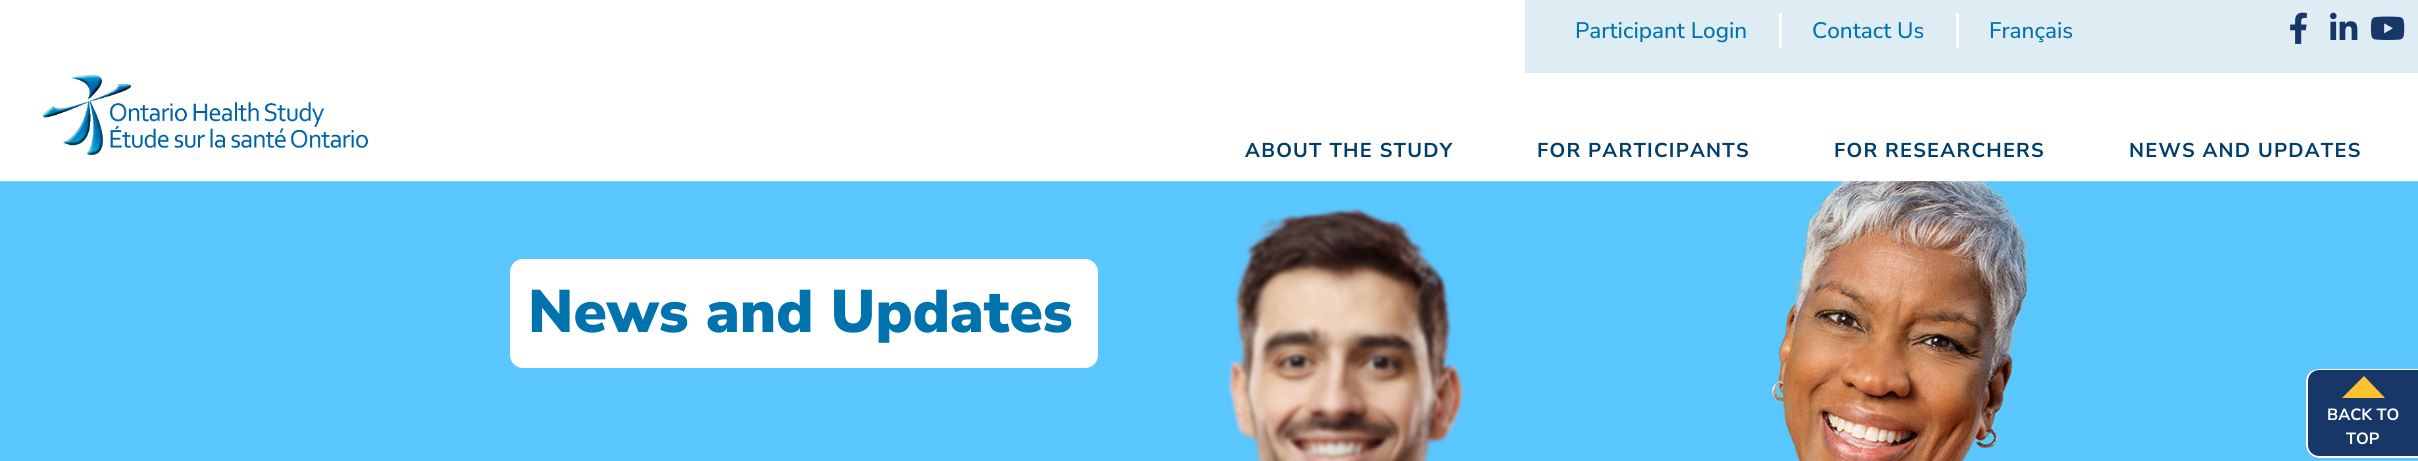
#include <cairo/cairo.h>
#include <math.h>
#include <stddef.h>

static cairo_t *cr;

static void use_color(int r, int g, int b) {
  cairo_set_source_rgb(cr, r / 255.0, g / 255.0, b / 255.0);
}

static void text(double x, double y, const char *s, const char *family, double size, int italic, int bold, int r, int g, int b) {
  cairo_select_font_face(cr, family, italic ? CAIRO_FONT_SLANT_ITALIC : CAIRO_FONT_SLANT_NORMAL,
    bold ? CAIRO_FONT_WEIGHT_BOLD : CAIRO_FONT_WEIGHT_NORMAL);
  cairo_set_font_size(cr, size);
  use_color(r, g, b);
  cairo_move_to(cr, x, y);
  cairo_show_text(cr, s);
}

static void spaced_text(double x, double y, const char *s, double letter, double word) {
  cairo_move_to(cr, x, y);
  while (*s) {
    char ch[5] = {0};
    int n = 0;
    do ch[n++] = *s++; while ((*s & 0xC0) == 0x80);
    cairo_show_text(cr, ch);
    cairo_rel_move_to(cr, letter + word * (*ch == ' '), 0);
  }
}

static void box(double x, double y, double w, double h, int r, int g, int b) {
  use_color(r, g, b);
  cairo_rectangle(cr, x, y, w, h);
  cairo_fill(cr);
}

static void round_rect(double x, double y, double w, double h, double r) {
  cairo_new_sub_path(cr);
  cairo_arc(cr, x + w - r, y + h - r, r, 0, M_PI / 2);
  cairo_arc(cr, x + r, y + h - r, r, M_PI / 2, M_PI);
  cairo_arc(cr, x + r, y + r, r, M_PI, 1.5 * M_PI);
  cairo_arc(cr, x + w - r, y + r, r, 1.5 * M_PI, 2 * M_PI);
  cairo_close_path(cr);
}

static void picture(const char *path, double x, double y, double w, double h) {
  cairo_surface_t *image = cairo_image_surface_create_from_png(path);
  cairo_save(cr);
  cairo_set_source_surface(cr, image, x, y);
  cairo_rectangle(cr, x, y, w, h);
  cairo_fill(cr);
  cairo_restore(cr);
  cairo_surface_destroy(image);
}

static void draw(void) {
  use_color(255, 255, 255);
  cairo_paint(cr);
  picture("img_01.png", 42, 75, 327, 80);
  box(1525, 0, 893, 73, 222, 236, 244);
  box(1779, 13, 3, 35, 255, 255, 255);
  box(1956, 13, 3, 35, 255, 255, 255);
  picture("img_02.png", 2290, 12, 17, 32);
  picture("img_03.png", 2330, 12, 28, 28);
  picture("img_04.png", 2370, 16, 35, 24);
  picture("img_05.png", 0, 181, 2418, 280);
  round_rect(510, 259, 588, 109, 13);
  cairo_fill(cr);
  use_color(24, 55, 105);
  cairo_new_path(cr);
  cairo_move_to(cr, 2319, 369);
  cairo_line_to(cr, 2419, 369);
  cairo_line_to(cr, 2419, 458);
  cairo_line_to(cr, 2319, 458);
  cairo_curve_to(cr, 2312, 458, 2306, 452, 2306, 445);
  cairo_line_to(cr, 2306, 382);
  cairo_curve_to(cr, 2306, 375, 2312, 369, 2319, 369);
  cairo_close_path(cr);
  cairo_fill(cr);
  use_color(255, 255, 255);
  cairo_set_fill_rule(cr, CAIRO_FILL_RULE_EVEN_ODD);
  cairo_new_path(cr);
  cairo_move_to(cr, 2319, 369);
  cairo_line_to(cr, 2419, 369);
  cairo_line_to(cr, 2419, 458);
  cairo_line_to(cr, 2319, 458);
  cairo_curve_to(cr, 2312, 458, 2306, 452, 2306, 445);
  cairo_line_to(cr, 2306, 381);
  cairo_curve_to(cr, 2306, 374, 2312, 369, 2319, 369);
  cairo_close_path(cr);
  cairo_move_to(cr, 2319, 370);
  cairo_line_to(cr, 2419, 370);
  cairo_line_to(cr, 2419, 456);
  cairo_line_to(cr, 2319, 456);
  cairo_curve_to(cr, 2313, 456, 2308, 451, 2308, 445);
  cairo_line_to(cr, 2308, 381);
  cairo_curve_to(cr, 2308, 375, 2313, 370, 2319, 370);
  cairo_close_path(cr);
  cairo_fill(cr);
  use_color(251, 196, 47);
  cairo_set_fill_rule(cr, CAIRO_FILL_RULE_WINDING);
  cairo_new_path(cr);
  cairo_move_to(cr, 2385, 398);
  cairo_line_to(cr, 2342, 398);
  cairo_line_to(cr, 2364, 376);
  cairo_close_path(cr);
  cairo_fill(cr);
  text(1575, 38, "Participant Login", "Nunito Sans Medium", 22.5, 0, 0, 0, 115, 174);
  text(1812, 38, "Contact Us", "Nunito Sans Medium", 22.5, 0, 0, 0, 115, 174);
  text(1989, 38, "Français", "Nunito Sans Medium", 22.5, 0, 0, 0, 115, 174);
  cairo_select_font_face(cr, "Nunito Sans", CAIRO_FONT_SLANT_NORMAL, CAIRO_FONT_WEIGHT_BOLD);
  cairo_set_font_size(cr, 20);
  use_color(0, 62, 107);
  spaced_text(1245, 157, "ABOUT THE STUDY", 1.25, 0);
  spaced_text(1537, 157, "FOR PARTICIPANTS", 1.25, 0);
  spaced_text(1834, 157, "FOR RESEARCHERS", 1.25, 0);
  spaced_text(2129, 157, "NEWS AND UPDATES", 1.25, 0);
  text(528, 332, "News and Updates", "Nunito Sans Black", 60, 0, 0, 0, 115, 174);
  text(2327, 420, "BACK TO", "Nunito Sans", 16.25, 0, 1, 255, 255, 255);
  text(2346, 444, "TOP", "Nunito Sans", 16.25, 0, 1, 255, 255, 255);
}

int main(void) {
  cairo_surface_t *surface = cairo_image_surface_create(CAIRO_FORMAT_RGB24, 2418, 461);
  cr = cairo_create(surface);
  cairo_font_options_t *options = cairo_font_options_create();
  cairo_font_options_set_hint_metrics(options, CAIRO_HINT_METRICS_OFF);
  cairo_font_options_set_hint_style(options, CAIRO_HINT_STYLE_NONE);
  cairo_set_font_options(cr, options);
  cairo_set_miter_limit(cr, 4);
  draw();
  cairo_surface_write_to_png(surface, "out.png");
  cairo_font_options_destroy(options);
  cairo_destroy(cr);
  cairo_surface_destroy(surface);
  return 0;
}
